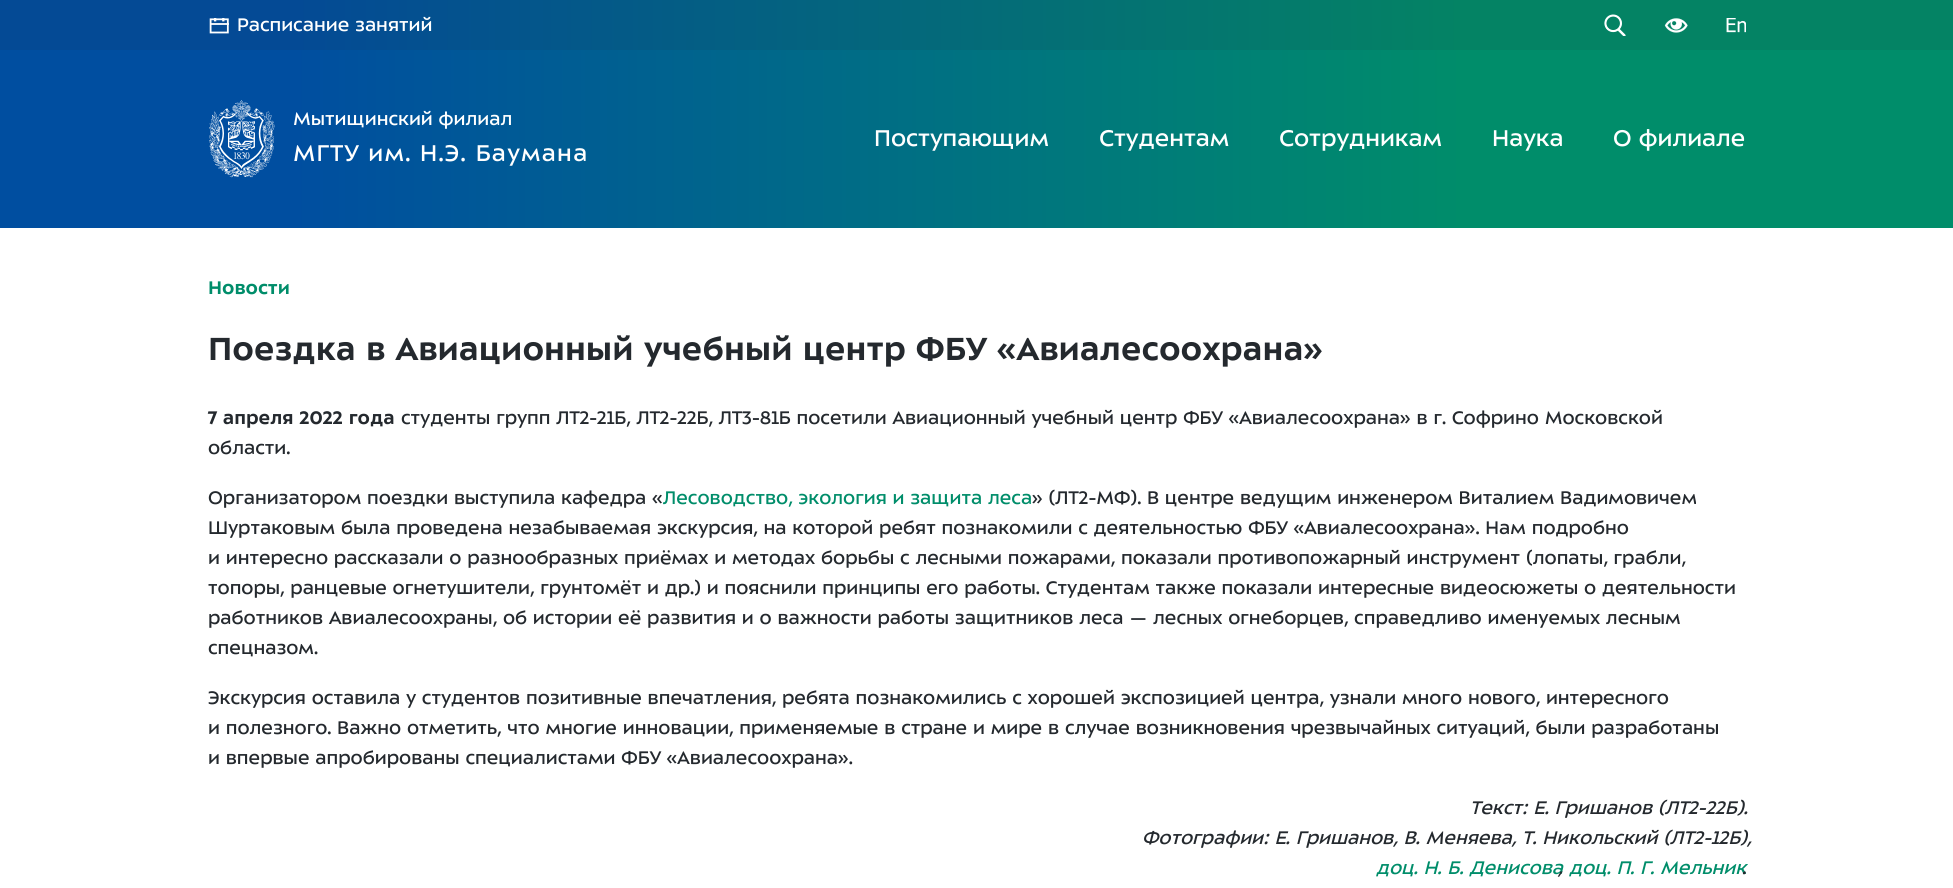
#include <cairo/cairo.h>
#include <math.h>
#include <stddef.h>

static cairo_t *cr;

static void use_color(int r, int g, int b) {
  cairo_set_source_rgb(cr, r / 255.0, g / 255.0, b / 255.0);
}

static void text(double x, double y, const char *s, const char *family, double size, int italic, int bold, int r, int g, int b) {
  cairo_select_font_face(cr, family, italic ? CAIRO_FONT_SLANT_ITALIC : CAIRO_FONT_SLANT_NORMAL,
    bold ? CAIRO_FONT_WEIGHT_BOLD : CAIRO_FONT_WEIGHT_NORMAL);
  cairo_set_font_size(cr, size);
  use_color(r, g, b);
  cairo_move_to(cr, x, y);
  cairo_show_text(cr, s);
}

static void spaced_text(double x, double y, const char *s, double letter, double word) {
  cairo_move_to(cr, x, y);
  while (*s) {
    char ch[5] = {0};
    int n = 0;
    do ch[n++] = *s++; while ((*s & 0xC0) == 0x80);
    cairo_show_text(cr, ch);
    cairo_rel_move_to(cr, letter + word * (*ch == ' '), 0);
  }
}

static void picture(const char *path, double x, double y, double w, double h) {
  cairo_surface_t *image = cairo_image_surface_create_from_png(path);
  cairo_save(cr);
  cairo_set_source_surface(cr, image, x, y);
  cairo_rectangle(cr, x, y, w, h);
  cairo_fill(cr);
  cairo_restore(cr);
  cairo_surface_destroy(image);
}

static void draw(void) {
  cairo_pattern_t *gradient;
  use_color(255, 255, 255);
  cairo_paint(cr);
  gradient = cairo_pattern_create_linear(0, 114, 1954, 114);
  cairo_pattern_add_color_stop_rgba(gradient, 0.15, 0, 0.306, 0.627, 1);
  cairo_pattern_add_color_stop_rgba(gradient, 0.75, 0, 0.553, 0.416, 1);
  cairo_set_source(cr, gradient);
  cairo_pattern_destroy(gradient);
  cairo_rectangle(cr, 0, 50, 1953, 178);
  cairo_fill(cr);
  gradient = cairo_pattern_create_linear(0, 114, 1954, 114);
  cairo_pattern_add_color_stop_rgba(gradient, 0.15, 0.016, 0.29, 0.584, 1);
  cairo_pattern_add_color_stop_rgba(gradient, 0.75, 0.016, 0.514, 0.392, 1);
  cairo_set_source(cr, gradient);
  cairo_pattern_destroy(gradient);
  cairo_rectangle(cr, 0, 0, 1953, 50);
  cairo_fill(cr);
  picture("img_01.png", 209, 18, 20, 16);
  picture("img_02.png", 1604, 14, 22, 22);
  picture("img_03.png", 1664, 18, 24, 15);
  picture("img_04.png", 1726, 18, 20, 15);
  picture("img_05.png", 209, 100, 66, 78);
  text(237, 31, "Расписание занятий", "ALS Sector", 20, 0, 0, 255, 255, 255);
  text(293, 125, "Мытищинский филиал", "ALS Sector", 20, 0, 0, 255, 255, 255);
  cairo_set_font_size(cr, 25);
  spaced_text(293, 161, "МГТУ им. Н.Э. Баумана", 1.3, 0);
  text(874, 146, "Поступающим", "ALS Sector", 25, 0, 0, 255, 255, 255);
  text(1099, 146, "Студентам", "ALS Sector", 25, 0, 0, 255, 255, 255);
  text(1279, 146, "Сотрудникам", "ALS Sector", 25, 0, 0, 255, 255, 255);
  text(1492, 146, "Наука", "ALS Sector", 25, 0, 0, 255, 255, 255);
  text(1613, 146, "О филиале", "ALS Sector", 25, 0, 0, 255, 255, 255);
  text(208, 294, "Новости", "ALS Sector", 20, 0, 1, 0, 141, 106);
  text(208, 360, "Поездка в Авиационный учебный центр ФБУ «Авиалесоохрана»", "ALS Sector", 35, 0, 1, 36, 41, 46);
  text(208, 424, "7 апреля 2022 года", "ALS Sector", 20, 0, 1, 36, 41, 46);
  text(401, 424, "студенты групп ЛТ2-21Б, ЛТ2-22Б, ЛТ3-81Б посетили Авиационный учебный центр ФБУ «Авиалесоохрана» в г. Софрино Московской", "ALS Sector", 20, 0, 0, 36, 41, 46);
  text(208, 454, "области.", "ALS Sector", 20, 0, 0, 36, 41, 46);
  text(208, 504, "Организатором поездки выступила кафедра «", "ALS Sector", 20, 0, 0, 36, 41, 46);
  text(663, 504, "Лесоводство, экология и защита леса", "ALS Sector", 20, 0, 0, 0, 141, 106);
  text(1032, 504, "» (ЛТ2-МФ). В центре ведущим инженером Виталием Вадимовичем", "ALS Sector", 20, 0, 0, 36, 41, 46);
  text(208, 534, "Шуртаковым была проведена незабываемая экскурсия, на которой ребят познакомили с деятельностью ФБУ «Авиалесоохрана». Нам подробно", "ALS Sector", 20, 0, 0, 36, 41, 46);
  text(208, 564, "и интересно рассказали о разнообразных приёмах и методах борьбы с лесными пожарами, показали противопожарный инструмент (лопаты, грабли,", "ALS Sector", 20, 0, 0, 36, 41, 46);
  text(208, 594, "топоры, ранцевые огнетушители, грунтомёт и др.) и пояснили принципы его работы. Студентам также показали интересные видеосюжеты о деятельности", "ALS Sector", 20, 0, 0, 36, 41, 46);
  text(208, 624, "работников Авиалесоохраны, об истории её развития и о важности работы защитников леса — лесных огнеборцев, справедливо именуемых лесным", "ALS Sector", 20, 0, 0, 36, 41, 46);
  text(208, 654, "спецназом.", "ALS Sector", 20, 0, 0, 36, 41, 46);
  text(208, 704, "Экскурсия оставила у студентов позитивные впечатления, ребята познакомились с хорошей экспозицией центра, узнали много нового, интересного", "ALS Sector", 20, 0, 0, 36, 41, 46);
  text(208, 734, "и полезного. Важно отметить, что многие инновации, применяемые в стране и мире в случае возникновения чрезвычайных ситуаций, были разработаны", "ALS Sector", 20, 0, 0, 36, 41, 46);
  text(208, 764, "и впервые апробированы специалистами ФБУ «Авиалесоохрана».", "ALS Sector", 20, 0, 0, 36, 41, 46);
  text(1470, 814, "Текст: Е. Гришанов (ЛТ2-22Б).", "ALS Sector", 20, 1, 0, 36, 41, 46);
  text(1142, 844, "Фотографии: Е. Гришанов, В. Меняева, Т. Никольский (ЛТ2-12Б),", "ALS Sector", 20, 1, 0, 36, 41, 46);
  text(1376, 874, "доц. Н. Б. Денисова", "ALS Sector", 20, 1, 0, 0, 141, 106);
  text(1558, 874, ",", "ALS Sector", 20, 1, 0, 36, 41, 46);
  text(1569, 874, "доц. П. Г. Мельник", "ALS Sector", 20, 1, 0, 0, 141, 106);
  text(1742, 874, ".", "ALS Sector", 20, 1, 0, 36, 41, 46);
}

int main(void) {
  cairo_surface_t *surface = cairo_image_surface_create(CAIRO_FORMAT_RGB24, 1953, 888);
  cr = cairo_create(surface);
  cairo_font_options_t *options = cairo_font_options_create();
  cairo_font_options_set_hint_metrics(options, CAIRO_HINT_METRICS_OFF);
  cairo_font_options_set_hint_style(options, CAIRO_HINT_STYLE_NONE);
  cairo_set_font_options(cr, options);
  cairo_set_miter_limit(cr, 4);
  draw();
  cairo_surface_write_to_png(surface, "out.png");
  cairo_font_options_destroy(options);
  cairo_destroy(cr);
  cairo_surface_destroy(surface);
  return 0;
}
